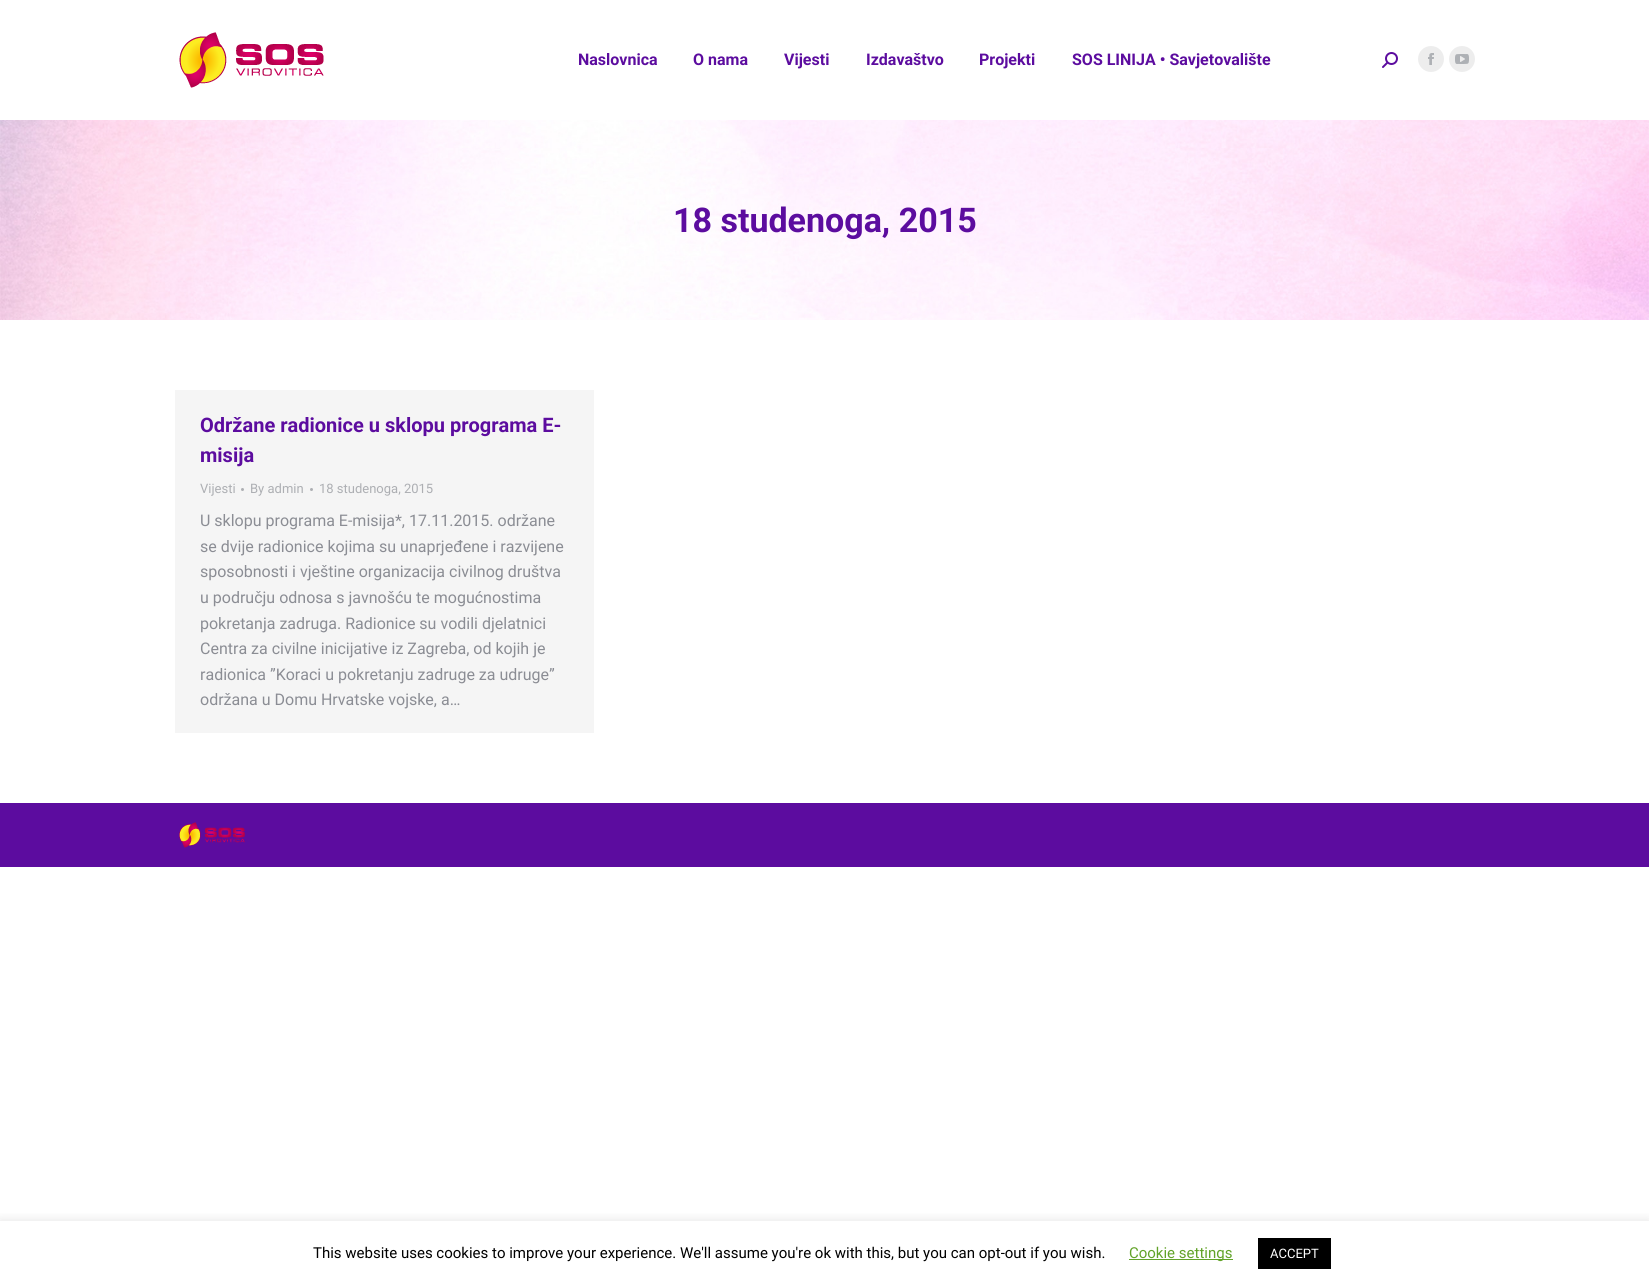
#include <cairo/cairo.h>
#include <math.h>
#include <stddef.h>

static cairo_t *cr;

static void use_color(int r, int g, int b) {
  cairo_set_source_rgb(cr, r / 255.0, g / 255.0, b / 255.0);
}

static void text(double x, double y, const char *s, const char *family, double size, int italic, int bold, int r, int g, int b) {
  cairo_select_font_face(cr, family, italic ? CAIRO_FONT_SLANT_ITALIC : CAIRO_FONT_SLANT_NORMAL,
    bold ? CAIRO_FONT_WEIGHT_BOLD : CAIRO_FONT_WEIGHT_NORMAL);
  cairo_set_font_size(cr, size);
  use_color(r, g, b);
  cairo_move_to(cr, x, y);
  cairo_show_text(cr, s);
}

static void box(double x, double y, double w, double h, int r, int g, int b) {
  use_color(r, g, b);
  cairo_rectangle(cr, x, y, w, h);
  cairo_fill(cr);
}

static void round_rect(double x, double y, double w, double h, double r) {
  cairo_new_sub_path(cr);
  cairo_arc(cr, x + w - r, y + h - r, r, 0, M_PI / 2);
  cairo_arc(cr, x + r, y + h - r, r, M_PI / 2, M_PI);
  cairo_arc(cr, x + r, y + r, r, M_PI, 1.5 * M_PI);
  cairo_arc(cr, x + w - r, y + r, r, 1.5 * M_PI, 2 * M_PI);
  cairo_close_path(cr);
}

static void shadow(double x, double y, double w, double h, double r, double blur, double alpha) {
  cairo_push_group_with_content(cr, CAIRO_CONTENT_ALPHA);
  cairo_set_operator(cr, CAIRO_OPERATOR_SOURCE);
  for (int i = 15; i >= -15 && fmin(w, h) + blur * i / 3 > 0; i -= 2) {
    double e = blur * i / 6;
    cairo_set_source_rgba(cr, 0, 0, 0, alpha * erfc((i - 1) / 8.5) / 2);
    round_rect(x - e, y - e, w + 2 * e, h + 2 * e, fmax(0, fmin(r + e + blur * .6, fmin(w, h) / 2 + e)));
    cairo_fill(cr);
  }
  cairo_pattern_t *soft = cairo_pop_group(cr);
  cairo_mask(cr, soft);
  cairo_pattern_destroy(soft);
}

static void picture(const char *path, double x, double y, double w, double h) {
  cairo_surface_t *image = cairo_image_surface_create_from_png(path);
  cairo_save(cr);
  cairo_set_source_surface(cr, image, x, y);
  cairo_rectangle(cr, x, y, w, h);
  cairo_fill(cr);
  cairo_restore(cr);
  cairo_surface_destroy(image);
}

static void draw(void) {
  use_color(255, 255, 255);
  cairo_paint(cr);
  picture("img_01.png", 179, 32, 145, 56);
  picture("img_02.png", 1382, 52, 16, 16);
  use_color(237, 237, 237);
  cairo_arc(cr, 1431, 59, 13, 0, 2 * M_PI);
  cairo_fill(cr);
  picture("img_03.png", 1428, 53, 6, 12);
  cairo_arc(cr, 1462, 59, 13, 0, 2 * M_PI);
  cairo_fill(cr);
  picture("img_04.png", 1455, 54, 14, 10);
  picture("img_05.png", 0, 120, 1649, 200);
  box(175, 390, 419, 343, 245, 245, 245);
  use_color(173, 175, 179);
  cairo_arc(cr, 242.5, 489.5, 1.5, 0, 2 * M_PI);
  cairo_fill(cr);
  cairo_arc(cr, 311.5, 489.5, 1.5, 0, 2 * M_PI);
  cairo_fill(cr);
  box(0, 803, 1649, 64, 92, 12, 159);
  picture("img_06.png", 179, 822, 66, 26);
  cairo_save(cr);
  cairo_rectangle(cr, 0, 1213, 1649, 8);
  cairo_clip(cr);
  use_color(172, 171, 171);
  shadow(0, 1220, 1649, 65, 0, 5, 0.3);
  cairo_restore(cr);
  box(1129, 1259, 104, 1, 98, 163, 41);
  box(1258, 1238, 73, 31, 0, 0, 0);
  text(578, 65, "Naslovnica", "Roboto", 16, 0, 1, 92, 12, 159);
  text(693, 65, "O nama", "Roboto", 16, 0, 1, 92, 12, 159);
  text(784, 65, "Vijesti", "Roboto", 16, 0, 1, 92, 12, 159);
  text(866, 65, "Izdavaštvo", "Roboto", 16, 0, 1, 92, 12, 159);
  text(979, 65, "Projekti", "Roboto", 16, 0, 1, 92, 12, 159);
  text(1072, 65, "SOS LINIJA • Savjetovalište", "Roboto", 16, 0, 1, 92, 12, 159);
  text(673, 232, "18 studenoga, 2015", "Roboto", 34, 0, 1, 92, 12, 159);
  text(200, 432, "Održane radionice u sklopu programa E-", "Roboto", 20, 0, 1, 92, 12, 159);
  text(200, 462, "misija", "Roboto", 20, 0, 1, 92, 12, 159);
  text(200, 493, "Vijesti", "Roboto", 13, 0, 0, 173, 175, 179);
  text(250, 493, "By admin", "Roboto", 13, 0, 0, 173, 175, 179);
  text(319, 493, "18 studenoga, 2015", "Roboto", 13, 0, 0, 173, 175, 179);
  text(200, 526, "U sklopu programa E-misija*, 17.11.2015. održane", "Roboto", 16, 0, 0, 139, 141, 148);
  text(200, 552, "se dvije radionice kojima su unaprjeđene i razvijene", "Roboto", 16, 0, 0, 139, 141, 148);
  text(200, 577, "sposobnosti i vještine organizacija civilnog društva", "Roboto", 16, 0, 0, 139, 141, 148);
  text(200, 603, "u području odnosa s javnošću te mogućnostima", "Roboto", 16, 0, 0, 139, 141, 148);
  text(200, 629, "pokretanja zadruga. Radionice su vodili djelatnici", "Roboto", 16, 0, 0, 139, 141, 148);
  text(200, 654, "Centra za civilne inicijative iz Zagreba, od kojih je", "Roboto", 16, 0, 0, 139, 141, 148);
  text(200, 680, "radionica ”Koraci u pokretanju zadruge za udruge”", "Roboto", 16, 0, 0, 139, 141, 148);
  text(200, 705, "održana u Domu Hrvatske vojske, a…", "Roboto", 16, 0, 0, 139, 141, 148);
  text(313, 1258, "This website uses cookies to improve your experience. We'll assume you're ok with this, but you can opt-out if you wish.", "Roboto", 15, 0, 0, 0, 0, 0);
  text(1129, 1258, "Cookie settings", "Roboto", 15, 0, 0, 98, 163, 41);
  text(1270, 1258, "ACCEPT", "Roboto", 13, 0, 0, 255, 255, 255);
}

int main(void) {
  cairo_surface_t *surface = cairo_image_surface_create(CAIRO_FORMAT_RGB24, 1649, 1286);
  cr = cairo_create(surface);
  cairo_font_options_t *options = cairo_font_options_create();
  cairo_font_options_set_hint_metrics(options, CAIRO_HINT_METRICS_OFF);
  cairo_font_options_set_hint_style(options, CAIRO_HINT_STYLE_NONE);
  cairo_set_font_options(cr, options);
  cairo_set_miter_limit(cr, 4);
  draw();
  cairo_surface_write_to_png(surface, "out.png");
  cairo_font_options_destroy(options);
  cairo_destroy(cr);
  cairo_surface_destroy(surface);
  return 0;
}
